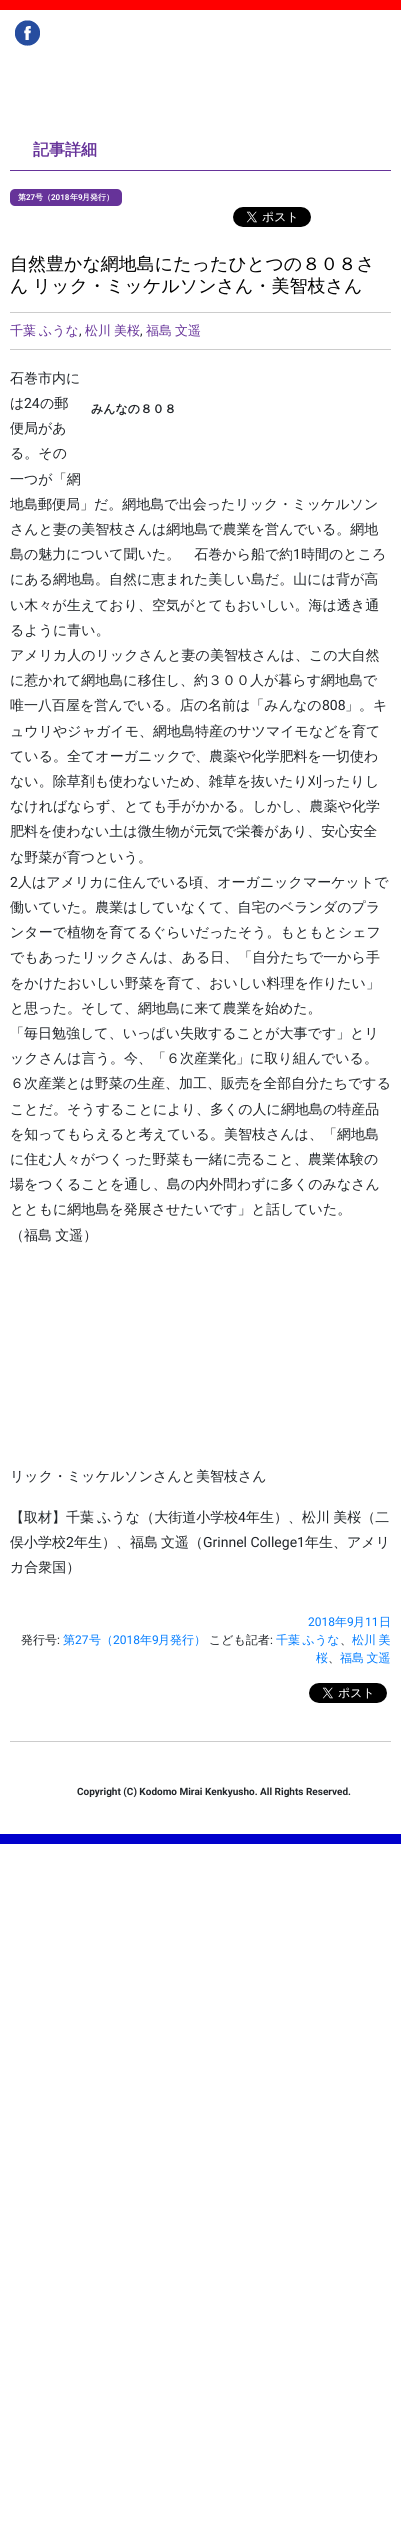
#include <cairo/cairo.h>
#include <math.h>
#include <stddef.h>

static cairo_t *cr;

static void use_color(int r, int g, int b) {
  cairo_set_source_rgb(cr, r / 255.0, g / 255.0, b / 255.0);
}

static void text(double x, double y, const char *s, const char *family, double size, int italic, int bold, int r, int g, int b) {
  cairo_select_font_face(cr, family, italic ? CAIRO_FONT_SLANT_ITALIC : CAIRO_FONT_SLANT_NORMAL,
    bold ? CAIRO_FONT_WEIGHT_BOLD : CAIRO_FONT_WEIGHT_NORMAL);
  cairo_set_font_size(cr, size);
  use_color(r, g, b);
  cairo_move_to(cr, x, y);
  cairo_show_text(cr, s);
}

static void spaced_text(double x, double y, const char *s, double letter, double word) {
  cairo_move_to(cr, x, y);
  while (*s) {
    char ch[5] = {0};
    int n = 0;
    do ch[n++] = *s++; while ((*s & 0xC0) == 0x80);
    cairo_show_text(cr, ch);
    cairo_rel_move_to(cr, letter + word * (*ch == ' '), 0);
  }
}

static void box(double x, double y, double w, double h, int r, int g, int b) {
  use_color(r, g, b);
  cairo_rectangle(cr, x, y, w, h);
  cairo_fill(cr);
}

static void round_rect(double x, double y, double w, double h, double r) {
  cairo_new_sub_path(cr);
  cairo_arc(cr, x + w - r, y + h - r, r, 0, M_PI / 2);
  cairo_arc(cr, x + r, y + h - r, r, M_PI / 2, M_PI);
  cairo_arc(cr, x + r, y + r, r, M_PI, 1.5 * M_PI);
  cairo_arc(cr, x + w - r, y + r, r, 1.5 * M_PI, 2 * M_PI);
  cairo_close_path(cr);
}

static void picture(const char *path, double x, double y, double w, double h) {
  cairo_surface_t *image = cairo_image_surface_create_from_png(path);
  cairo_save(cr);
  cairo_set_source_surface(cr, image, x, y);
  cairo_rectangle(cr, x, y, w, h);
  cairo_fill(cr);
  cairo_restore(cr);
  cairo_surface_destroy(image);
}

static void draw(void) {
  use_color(255, 255, 255);
  cairo_paint(cr);
  box(0, 0, 401, 10, 255, 0, 0);
  picture("img_01.png", 15, 20, 25, 26);
  box(10, 170, 381, 1, 102, 51, 153);
  round_rect(10, 189, 112, 17, 5);
  cairo_fill(cr);
  picture("img_02.png", 233, 207, 78, 20);
  box(10, 312, 381, 1, 204, 204, 204);
  box(10, 349, 381, 1, 204, 204, 204);
  picture("img_03.png", 309, 1683, 78, 20);
  box(10, 1741, 381, 1, 204, 204, 204);
  box(0, 1834, 401, 10, 0, 0, 204);
  text(33, 155, "記事詳細", "WenQuanYi Zen Hei", 16, 0, 1, 102, 51, 153);
  text(18, 200, "第", "WenQuanYi Zen Hei", 8, 0, 1, 255, 255, 255);
  text(26, 200, "27", "Roboto", 8, 0, 1, 255, 255, 255);
  text(35, 200, "号（", "WenQuanYi Zen Hei", 8, 0, 1, 255, 255, 255);
  text(51, 200, "2018", "Roboto", 8, 0, 1, 255, 255, 255);
  text(70, 200, "年", "WenQuanYi Zen Hei", 8, 0, 1, 255, 255, 255);
  text(78, 200, "9", "Roboto", 8, 0, 1, 255, 255, 255);
  text(82, 200, "月発行）", "WenQuanYi Zen Hei", 8, 0, 1, 255, 255, 255);
  text(10, 270, "自然豊かな網地島にたったひとつの８０８さ", "WenQuanYi Zen Hei Medium", 18, 0, 0, 0, 0, 0);
  spaced_text(10, 292, "ん リック・ミッケルソンさん・美智枝さん", 0, -1);
  cairo_set_font_size(cr, 13);
  use_color(102, 51, 153);
  spaced_text(10, 335, "千葉 ふうな", 0, -1);
  text(79, 335, ",", "Roboto", 13, 0, 0, 33, 37, 41);
  cairo_select_font_face(cr, "WenQuanYi Zen Hei Medium", CAIRO_FONT_SLANT_NORMAL, CAIRO_FONT_WEIGHT_NORMAL);
  use_color(102, 51, 153);
  spaced_text(85, 335, "松川 美桜", 0, -1);
  text(140, 335, ",", "Roboto", 13, 0, 0, 33, 37, 41);
  cairo_select_font_face(cr, "WenQuanYi Zen Hei Medium", CAIRO_FONT_SLANT_NORMAL, CAIRO_FONT_WEIGHT_NORMAL);
  use_color(102, 51, 153);
  spaced_text(146, 335, "福島 文遥", 0, -1);
  text(10, 383, "石巻市内に", "WenQuanYi Zen Hei Medium", 14, 0, 0, 33, 37, 41);
  text(10, 408, "は", "WenQuanYi Zen Hei Medium", 14, 0, 0, 33, 37, 41);
  text(24, 408, "24", "Roboto", 14, 0, 0, 33, 37, 41);
  text(40, 408, "の郵", "WenQuanYi Zen Hei Medium", 14, 0, 0, 33, 37, 41);
  text(10, 433, "便局があ", "WenQuanYi Zen Hei Medium", 14, 0, 0, 33, 37, 41);
  text(10, 458, "る。その", "WenQuanYi Zen Hei Medium", 14, 0, 0, 33, 37, 41);
  text(10, 484, "一つが「網", "WenQuanYi Zen Hei Medium", 14, 0, 0, 33, 37, 41);
  text(10, 509, "地島郵便局」だ。網地島で出会ったリック・ミッケルソン", "WenQuanYi Zen Hei Medium", 14, 0, 0, 33, 37, 41);
  text(10, 534, "さんと妻の美智枝さんは網地島で農業を営んでいる。網地", "WenQuanYi Zen Hei Medium", 14, 0, 0, 33, 37, 41);
  text(10, 559, "島の魅力について聞いた。　石巻から船で約", "WenQuanYi Zen Hei Medium", 14, 0, 0, 33, 37, 41);
  text(293, 559, "1", "Roboto", 14, 0, 0, 33, 37, 41);
  text(301, 559, "時間のところ", "WenQuanYi Zen Hei Medium", 14, 0, 0, 33, 37, 41);
  text(10, 584, "にある網地島。自然に恵まれた美しい島だ。山には背が高", "WenQuanYi Zen Hei Medium", 14, 0, 0, 33, 37, 41);
  text(10, 610, "い木々が生えており、空気がとてもおいしい。海は透き通", "WenQuanYi Zen Hei Medium", 14, 0, 0, 33, 37, 41);
  text(10, 635, "るように青い。", "WenQuanYi Zen Hei Medium", 14, 0, 0, 33, 37, 41);
  text(10, 660, "アメリカ人のリックさんと妻の美智枝さんは、この大自然", "WenQuanYi Zen Hei Medium", 14, 0, 0, 33, 37, 41);
  text(10, 685, "に惹かれて網地島に移住し、約３００人が暮らす網地島で", "WenQuanYi Zen Hei Medium", 14, 0, 0, 33, 37, 41);
  text(10, 710, "唯一八百屋を営んでいる。店の名前は「みんなの", "WenQuanYi Zen Hei Medium", 14, 0, 0, 33, 37, 41);
  text(322, 710, "808", "Roboto", 14, 0, 0, 33, 37, 41);
  text(345, 710, "」。キ", "WenQuanYi Zen Hei Medium", 14, 0, 0, 33, 37, 41);
  text(10, 736, "ュウリやジャガイモ、網地島特産のサツマイモなどを育て", "WenQuanYi Zen Hei Medium", 14, 0, 0, 33, 37, 41);
  text(10, 761, "ている。全てオーガニックで、農薬や化学肥料を一切使わ", "WenQuanYi Zen Hei Medium", 14, 0, 0, 33, 37, 41);
  text(10, 786, "ない。除草剤も使わないため、雑草を抜いたり刈ったりし", "WenQuanYi Zen Hei Medium", 14, 0, 0, 33, 37, 41);
  text(10, 811, "なければならず、とても手がかかる。しかし、農薬や化学", "WenQuanYi Zen Hei Medium", 14, 0, 0, 33, 37, 41);
  text(10, 836, "肥料を使わない土は微生物が元気で栄養があり、安心安全", "WenQuanYi Zen Hei Medium", 14, 0, 0, 33, 37, 41);
  text(10, 862, "な野菜が育つという。", "WenQuanYi Zen Hei Medium", 14, 0, 0, 33, 37, 41);
  text(10, 887, "2", "Roboto", 14, 0, 0, 33, 37, 41);
  text(18, 887, "人はアメリカに住んでいる頃、オーガニックマーケットで", "WenQuanYi Zen Hei Medium", 14, 0, 0, 33, 37, 41);
  text(10, 912, "働いていた。農業はしていなくて、自宅のベランダのプラ", "WenQuanYi Zen Hei Medium", 14, 0, 0, 33, 37, 41);
  text(10, 937, "ンターで植物を育てるぐらいだったそう。もともとシェフ", "WenQuanYi Zen Hei Medium", 14, 0, 0, 33, 37, 41);
  text(10, 962, "でもあったリックさんは、ある日、「自分たちで一から手", "WenQuanYi Zen Hei Medium", 14, 0, 0, 33, 37, 41);
  text(10, 988, "をかけたおいしい野菜を育て、おいしい料理を作りたい」", "WenQuanYi Zen Hei Medium", 14, 0, 0, 33, 37, 41);
  text(10, 1013, "と思った。そして、網地島に来て農業を始めた。", "WenQuanYi Zen Hei Medium", 14, 0, 0, 33, 37, 41);
  text(10, 1038, "「毎日勉強して、いっぱい失敗することが大事です」とリ", "WenQuanYi Zen Hei Medium", 14, 0, 0, 33, 37, 41);
  text(10, 1063, "ックさんは言う。今、「６次産業化」に取り組んでいる。", "WenQuanYi Zen Hei Medium", 14, 0, 0, 33, 37, 41);
  text(10, 1088, "６次産業とは野菜の生産、加工、販売を全部自分たちでする", "WenQuanYi Zen Hei Medium", 14, 0, 0, 33, 37, 41);
  text(10, 1114, "ことだ。そうすることにより、多くの人に網地島の特産品", "WenQuanYi Zen Hei Medium", 14, 0, 0, 33, 37, 41);
  text(10, 1139, "を知ってもらえると考えている。美智枝さんは、「網地島", "WenQuanYi Zen Hei Medium", 14, 0, 0, 33, 37, 41);
  text(10, 1164, "に住む人々がつくった野菜も一緒に売ること、農業体験の", "WenQuanYi Zen Hei Medium", 14, 0, 0, 33, 37, 41);
  text(10, 1189, "場をつくることを通し、島の内外問わずに多くのみなさん", "WenQuanYi Zen Hei Medium", 14, 0, 0, 33, 37, 41);
  text(10, 1214, "とともに網地島を発展させたいです」と話していた。", "WenQuanYi Zen Hei Medium", 14, 0, 0, 33, 37, 41);
  spaced_text(10, 1240, "（福島 文遥）", 0, -1);
  text(10, 1481, "リック・ミッケルソンさんと美智枝さん", "WenQuanYi Zen Hei Medium", 14, 0, 0, 33, 37, 41);
  spaced_text(10, 1522, "【取材】千葉 ふうな（大街道小学校", 0, -1);
  text(238, 1522, "4", "Roboto", 14, 0, 0, 33, 37, 41);
  cairo_select_font_face(cr, "WenQuanYi Zen Hei Medium", CAIRO_FONT_SLANT_NORMAL, CAIRO_FONT_WEIGHT_NORMAL);
  spaced_text(246, 1522, "年生）、松川 美桜（二", 0, -1);
  text(10, 1547, "俣小学校", "WenQuanYi Zen Hei Medium", 14, 0, 0, 33, 37, 41);
  text(66, 1547, "2", "Roboto", 14, 0, 0, 33, 37, 41);
  text(74, 1547, "年生）、福島", "WenQuanYi Zen Hei Medium", 14, 0, 0, 33, 37, 41);
  text(161, 1547, "文遥（", "WenQuanYi Zen Hei Medium", 14, 0, 0, 33, 37, 41);
  text(203, 1547, "Grinnel College1", "Roboto", 14, 0, 0, 33, 37, 41);
  text(305, 1547, "年生、アメリ", "WenQuanYi Zen Hei Medium", 14, 0, 0, 33, 37, 41);
  text(10, 1572, "カ合衆国）", "WenQuanYi Zen Hei Medium", 14, 0, 0, 33, 37, 41);
  text(91, 413, "みんなの８０８", "WenQuanYi Zen Hei", 12, 0, 1, 33, 37, 41);
  text(308, 1626, "2018", "Roboto", 12, 0, 0, 0, 123, 255);
  text(335, 1626, "年", "WenQuanYi Zen Hei Medium", 12, 0, 0, 0, 123, 255);
  text(347, 1626, "9", "Roboto", 12, 0, 0, 0, 123, 255);
  text(353, 1626, "月", "WenQuanYi Zen Hei Medium", 12, 0, 0, 0, 123, 255);
  text(365, 1626, "11", "Roboto", 12, 0, 0, 0, 123, 255);
  text(379, 1626, "日", "WenQuanYi Zen Hei Medium", 12, 0, 0, 0, 123, 255);
  text(21, 1644, "発行号", "WenQuanYi Zen Hei Medium", 12, 0, 0, 33, 37, 41);
  text(57, 1644, ":", "Roboto", 12, 0, 0, 33, 37, 41);
  text(63, 1644, "第", "WenQuanYi Zen Hei Medium", 12, 0, 0, 0, 123, 255);
  text(75, 1644, "27", "Roboto", 12, 0, 0, 0, 123, 255);
  text(89, 1644, "号（", "WenQuanYi Zen Hei Medium", 12, 0, 0, 0, 123, 255);
  text(113, 1644, "2018", "Roboto", 12, 0, 0, 0, 123, 255);
  text(140, 1644, "年", "WenQuanYi Zen Hei Medium", 12, 0, 0, 0, 123, 255);
  text(152, 1644, "9", "Roboto", 12, 0, 0, 0, 123, 255);
  text(158, 1644, "月発行）", "WenQuanYi Zen Hei Medium", 12, 0, 0, 0, 123, 255);
  text(209, 1644, "こども記者", "WenQuanYi Zen Hei Medium", 12, 0, 0, 33, 37, 41);
  text(270, 1644, ":", "Roboto", 12, 0, 0, 33, 37, 41);
  cairo_select_font_face(cr, "WenQuanYi Zen Hei Medium", CAIRO_FONT_SLANT_NORMAL, CAIRO_FONT_WEIGHT_NORMAL);
  use_color(0, 123, 255);
  spaced_text(276, 1644, "千葉 ふうな", 0, -1);
  text(340, 1644, "、", "WenQuanYi Zen Hei Medium", 12, 0, 0, 33, 37, 41);
  use_color(0, 123, 255);
  spaced_text(352, 1644, "松川 美", 0, -1);
  text(316, 1662, "桜", "WenQuanYi Zen Hei Medium", 12, 0, 0, 0, 123, 255);
  text(328, 1662, "、", "WenQuanYi Zen Hei Medium", 12, 0, 0, 33, 37, 41);
  use_color(0, 123, 255);
  spaced_text(340, 1662, "福島 文遥", 0, -1);
  text(77, 1795, "Copyright (C) Kodomo Mirai Kenkyusho. All Rights Reserved.", "Roboto", 10, 0, 1, 33, 37, 41);
}

int main(void) {
  cairo_surface_t *surface = cairo_image_surface_create(CAIRO_FORMAT_RGB24, 401, 2525);
  cr = cairo_create(surface);
  cairo_font_options_t *options = cairo_font_options_create();
  cairo_font_options_set_hint_metrics(options, CAIRO_HINT_METRICS_OFF);
  cairo_font_options_set_hint_style(options, CAIRO_HINT_STYLE_NONE);
  cairo_set_font_options(cr, options);
  cairo_set_miter_limit(cr, 4);
  draw();
  cairo_surface_write_to_png(surface, "out.png");
  cairo_font_options_destroy(options);
  cairo_destroy(cr);
  cairo_surface_destroy(surface);
  return 0;
}
